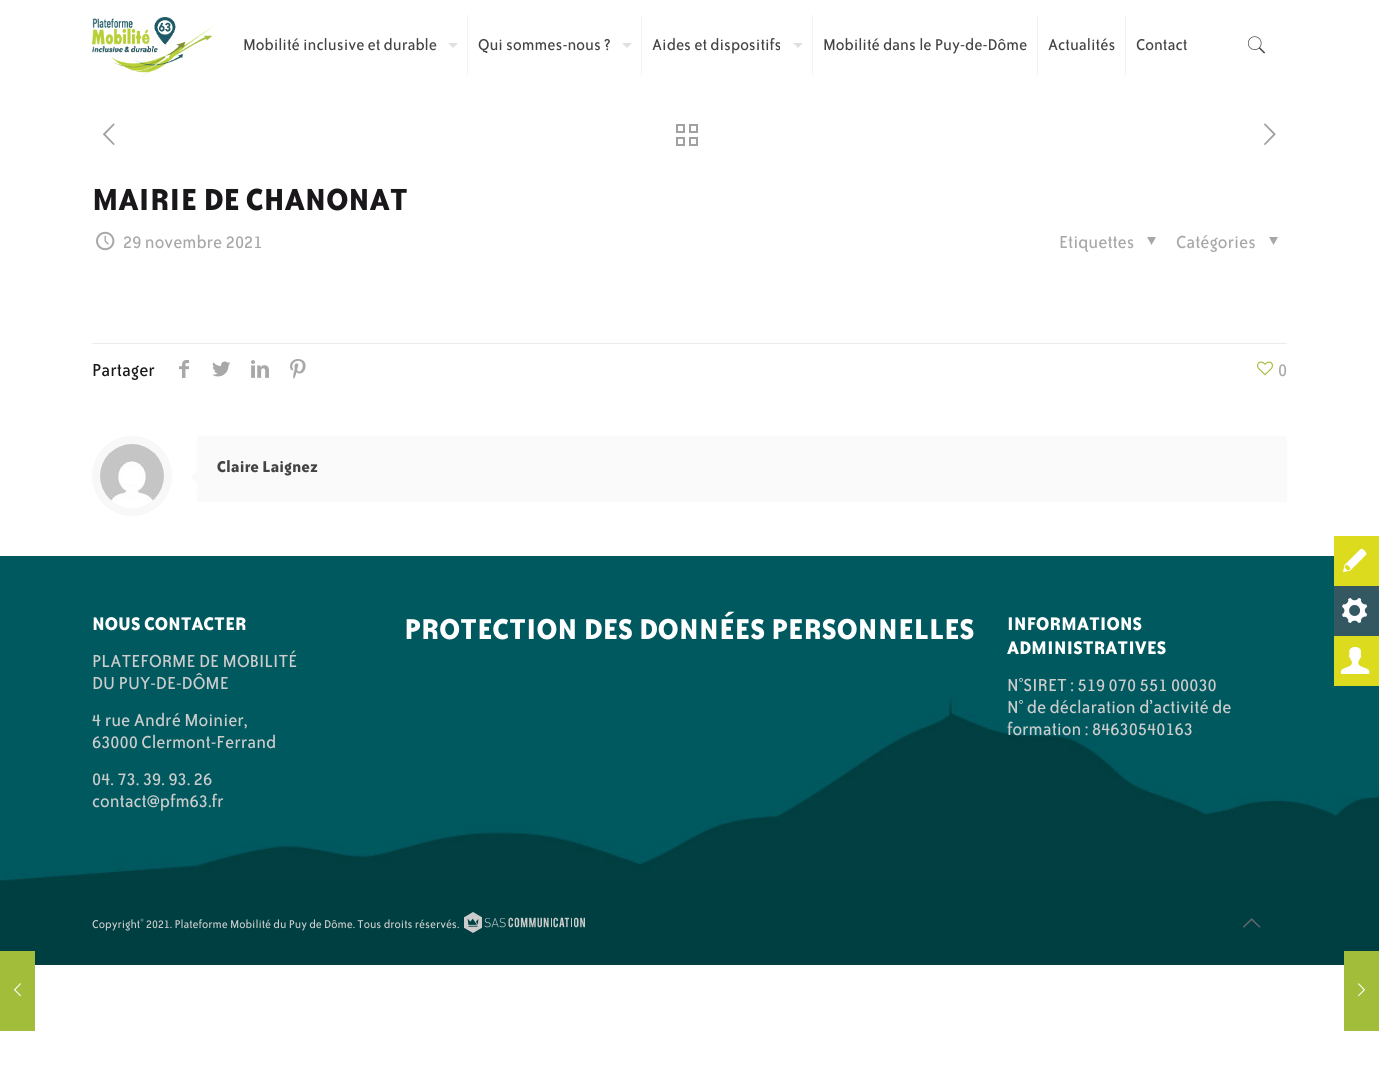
#include <cairo/cairo.h>
#include <math.h>
#include <stddef.h>

static cairo_t *cr;

static void use_color(int r, int g, int b) {
  cairo_set_source_rgb(cr, r / 255.0, g / 255.0, b / 255.0);
}

static void text(double x, double y, const char *s, const char *family, double size, int italic, int bold, int r, int g, int b) {
  cairo_select_font_face(cr, family, italic ? CAIRO_FONT_SLANT_ITALIC : CAIRO_FONT_SLANT_NORMAL,
    bold ? CAIRO_FONT_WEIGHT_BOLD : CAIRO_FONT_WEIGHT_NORMAL);
  cairo_set_font_size(cr, size);
  use_color(r, g, b);
  cairo_move_to(cr, x, y);
  cairo_show_text(cr, s);
}

static void box(double x, double y, double w, double h, int r, int g, int b) {
  use_color(r, g, b);
  cairo_rectangle(cr, x, y, w, h);
  cairo_fill(cr);
}

static void picture(const char *path, double x, double y, double w, double h) {
  cairo_surface_t *image = cairo_image_surface_create_from_png(path);
  cairo_save(cr);
  cairo_set_source_surface(cr, image, x, y);
  cairo_rectangle(cr, x, y, w, h);
  cairo_fill(cr);
  cairo_restore(cr);
  cairo_surface_destroy(image);
}

static void draw(void) {
  use_color(255, 255, 255);
  cairo_paint(cr);
  picture("img_01.png", 92, 17, 121, 60);
  box(467, 15, 1, 60, 242, 242, 242);
  use_color(224, 224, 224);
  cairo_new_path(cr);
  cairo_move_to(cr, 448, 43);
  cairo_line_to(cr, 458, 43);
  cairo_line_to(cr, 453, 48);
  cairo_close_path(cr);
  cairo_fill(cr);
  box(641, 15, 1, 60, 242, 242, 242);
  use_color(224, 224, 224);
  cairo_new_path(cr);
  cairo_move_to(cr, 622, 43);
  cairo_line_to(cr, 632, 43);
  cairo_line_to(cr, 627, 48);
  cairo_close_path(cr);
  cairo_fill(cr);
  box(812, 15, 1, 60, 242, 242, 242);
  use_color(224, 224, 224);
  cairo_new_path(cr);
  cairo_move_to(cr, 793, 43);
  cairo_line_to(cr, 803, 43);
  cairo_line_to(cr, 798, 48);
  cairo_close_path(cr);
  cairo_fill(cr);
  box(1037, 15, 1, 60, 242, 242, 242);
  box(1125, 15, 1, 60, 242, 242, 242);
  picture("img_02.png", 1247, 36, 19, 18);
  picture("img_03.png", 103, 123, 12, 22);
  picture("img_04.png", 676, 124, 22, 22);
  picture("img_05.png", 1264, 123, 12, 22);
  picture("img_06.png", 96, 231, 19, 20);
  use_color(168, 168, 168);
  cairo_new_path(cr);
  cairo_move_to(cr, 1156, 237);
  cairo_line_to(cr, 1151.5, 245);
  cairo_line_to(cr, 1147, 237);
  cairo_close_path(cr);
  cairo_fill(cr);
  cairo_new_path(cr);
  cairo_move_to(cr, 1278, 237);
  cairo_line_to(cr, 1273.5, 245);
  cairo_line_to(cr, 1269, 237);
  cairo_close_path(cr);
  cairo_fill(cr);
  box(92, 343, 1195, 1, 235, 235, 235);
  picture("img_07.png", 179, 360, 10, 18);
  picture("img_08.png", 212, 361, 19, 16);
  picture("img_09.png", 251, 360, 18, 18);
  picture("img_10.png", 290, 359, 16, 20);
  picture("img_11.png", 1257, 361, 16, 15);
  cairo_arc(cr, 132, 476, 36, 0, 2 * M_PI);
  use_color(248, 248, 248);
  cairo_set_line_width(cr, 8);
  cairo_stroke(cr);
  picture("img_12.png", 100, 444, 64, 57);
  box(197, 436, 1090, 66, 250, 250, 250);
  cairo_new_path(cr);
  cairo_move_to(cr, 197, 471);
  cairo_line_to(cr, 197, 483);
  cairo_line_to(cr, 191, 477);
  cairo_close_path(cr);
  cairo_fill(cr);
  box(0, 881, 1379, 84, 0, 63, 65);
  picture("img_13.png", 0, 556, 1379, 325);
  picture("img_14.png", 464, 912, 121, 21);
  picture("img_15.png", 1243, 918, 18, 10);
  box(1334, 536, 45, 50, 220, 219, 29);
  picture("img_16.png", 1343, 548, 24, 25);
  box(1334, 586, 45, 50, 52, 88, 98);
  picture("img_17.png", 1342, 598, 26, 25);
  box(1334, 636, 45, 50, 220, 219, 29);
  picture("img_18.png", 1341, 647, 29, 27);
  box(0, 951, 35, 80, 162, 189, 57);
  picture("img_19.png", 14, 983, 7, 14);
  box(1344, 951, 35, 80, 162, 189, 57);
  picture("img_20.png", 1358, 983, 7, 14);
  text(243, 50, "Mobilité inclusive et durable", "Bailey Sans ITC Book", 18, 0, 0, 68, 68, 68);
  text(478, 50, "Qui sommes-nous ?", "Bailey Sans ITC Book", 18, 0, 0, 68, 68, 68);
  text(652, 50, "Aides et dispositifs", "Bailey Sans ITC Book", 18, 0, 0, 68, 68, 68);
  text(823, 50, "Mobilité dans le Puy-de-Dôme", "Bailey Sans ITC Book", 18, 0, 0, 68, 68, 68);
  text(1048, 50, "Actualités", "Bailey Sans ITC Book", 18, 0, 0, 68, 68, 68);
  text(1136, 50, "Contact", "Bailey Sans ITC Book", 18, 0, 0, 68, 68, 68);
  text(92, 210, "MAIRIE DE CHANONAT", "Bailey Sans ITC Book", 35, 0, 1, 26, 23, 27);
  text(123, 248, "29 novembre 2021", "Bailey Sans ITC Book", 20, 0, 0, 168, 168, 168);
  text(1059, 248, "Etiquettes", "Bailey Sans ITC Book", 20, 0, 0, 168, 168, 168);
  text(1176, 248, "Catégories", "Bailey Sans ITC Book", 20, 0, 0, 168, 168, 168);
  text(92, 376, "Partager", "Bailey Sans ITC Book", 20, 0, 0, 26, 23, 27);
  text(1278, 376, "0", "Bailey Sans ITC Book", 20, 0, 0, 168, 168, 168);
  text(217, 472, "Claire Laignez", "Bailey Sans ITC Book", 18, 0, 1, 68, 68, 68);
  text(92, 630, "NOUS CONTACTER", "Bailey Sans ITC Book", 21, 0, 1, 255, 255, 255);
  text(92, 667, "PLATEFORME DE MOBILITÉ", "Bailey Sans ITC Book", 20, 0, 0, 204, 204, 204);
  text(92, 689, "DU PUY-DE-DÔME", "Bailey Sans ITC Book", 20, 0, 0, 204, 204, 204);
  text(92, 726, "4 rue André Moinier,", "Bailey Sans ITC Book", 20, 0, 0, 204, 204, 204);
  text(92, 748, "63000 Clermont-Ferrand", "Bailey Sans ITC Book", 20, 0, 0, 204, 204, 204);
  text(92, 785, "04. 73. 39. 93. 26", "Bailey Sans ITC Book", 20, 0, 0, 204, 204, 204);
  text(92, 807, "contact@pfm63.fr", "Bailey Sans ITC Book", 20, 0, 0, 204, 204, 204);
  text(404, 639, "PROTECTION DES DONNÉES PERSONNELLES", "Bailey Sans ITC Book", 33, 0, 1, 255, 255, 255);
  text(1007, 630, "INFORMATIONS", "Bailey Sans ITC Book", 21, 0, 1, 255, 255, 255);
  text(1007, 654, "ADMINISTRATIVES", "Bailey Sans ITC Book", 21, 0, 1, 255, 255, 255);
  text(1007, 691, "N°SIRET : 519 070 551 00030", "Bailey Sans ITC Book", 20, 0, 0, 204, 204, 204);
  text(1007, 713, "N° de déclaration d’activité de", "Bailey Sans ITC Book", 20, 0, 0, 204, 204, 204);
  text(1007, 735, "formation : 84630540163", "Bailey Sans ITC Book", 20, 0, 0, 204, 204, 204);
  text(92, 928, "Copyright© 2021. Plateforme Mobilité du Puy de Dôme. Tous droits réservés.", "Bailey Sans ITC Book", 13, 0, 0, 204, 204, 204);
}

int main(void) {
  cairo_surface_t *surface = cairo_image_surface_create(CAIRO_FORMAT_RGB24, 1379, 1071);
  cr = cairo_create(surface);
  cairo_font_options_t *options = cairo_font_options_create();
  cairo_font_options_set_hint_metrics(options, CAIRO_HINT_METRICS_OFF);
  cairo_font_options_set_hint_style(options, CAIRO_HINT_STYLE_NONE);
  cairo_set_font_options(cr, options);
  cairo_set_miter_limit(cr, 4);
  draw();
  cairo_surface_write_to_png(surface, "out.png");
  cairo_font_options_destroy(options);
  cairo_destroy(cr);
  cairo_surface_destroy(surface);
  return 0;
}
